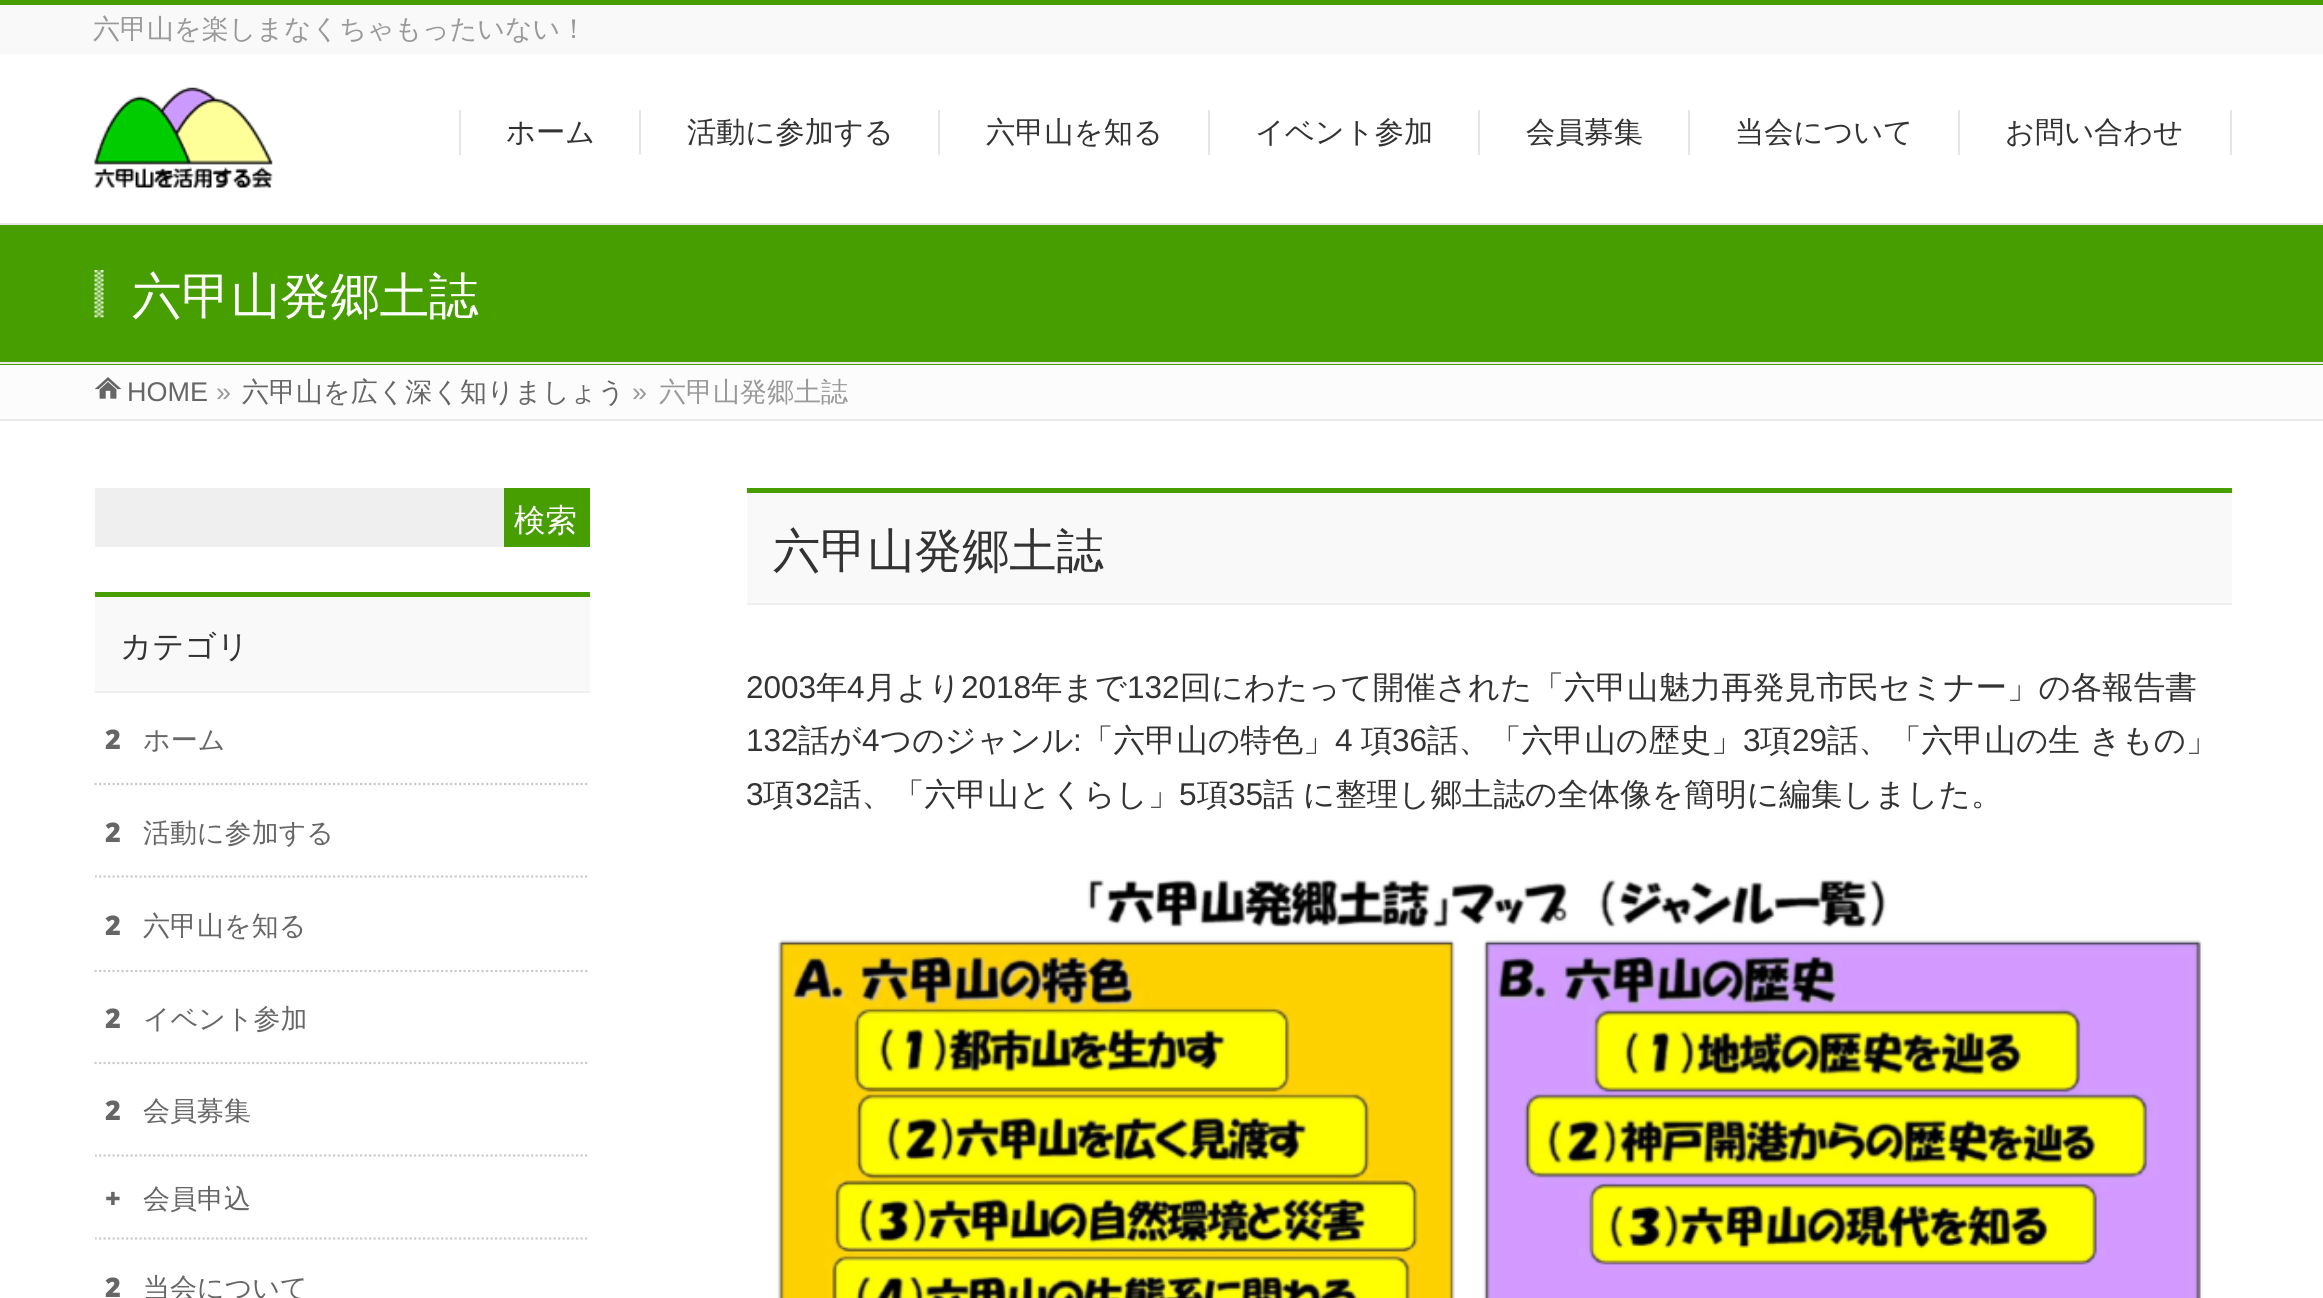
#include <cairo/cairo.h>
#include <math.h>
#include <stddef.h>

static cairo_t *cr;

static void use_color(int r, int g, int b) {
  cairo_set_source_rgb(cr, r / 255.0, g / 255.0, b / 255.0);
}

static void text(double x, double y, const char *s, const char *family, double size, int italic, int bold, int r, int g, int b) {
  cairo_select_font_face(cr, family, italic ? CAIRO_FONT_SLANT_ITALIC : CAIRO_FONT_SLANT_NORMAL,
    bold ? CAIRO_FONT_WEIGHT_BOLD : CAIRO_FONT_WEIGHT_NORMAL);
  cairo_set_font_size(cr, size);
  use_color(r, g, b);
  cairo_move_to(cr, x, y);
  cairo_show_text(cr, s);
}

static void spaced_text(double x, double y, const char *s, double letter, double word) {
  cairo_move_to(cr, x, y);
  while (*s) {
    char ch[5] = {0};
    int n = 0;
    do ch[n++] = *s++; while ((*s & 0xC0) == 0x80);
    cairo_show_text(cr, ch);
    cairo_rel_move_to(cr, letter + word * (*ch == ' '), 0);
  }
}

static void box(double x, double y, double w, double h, int r, int g, int b) {
  use_color(r, g, b);
  cairo_rectangle(cr, x, y, w, h);
  cairo_fill(cr);
}

static void picture(const char *path, double x, double y, double w, double h) {
  cairo_surface_t *image = cairo_image_surface_create_from_png(path);
  cairo_save(cr);
  cairo_set_source_surface(cr, image, x, y);
  cairo_rectangle(cr, x, y, w, h);
  cairo_fill(cr);
  cairo_restore(cr);
  cairo_surface_destroy(image);
}

static void draw(void) {
  use_color(255, 255, 255);
  cairo_paint(cr);
  box(0, 5, 2323, 49, 249, 249, 249);
  box(0, 0, 2323, 5, 71, 158, 0);
  picture("img_01.png", 94, 87, 179, 102);
  box(639, 110, 2, 45, 229, 229, 229);
  box(459, 110, 2, 45, 229, 229, 229);
  box(938, 110, 2, 45, 229, 229, 229);
  box(1208, 110, 2, 45, 229, 229, 229);
  box(1478, 110, 2, 45, 229, 229, 229);
  box(1688, 110, 2, 45, 229, 229, 229);
  box(1958, 110, 2, 45, 229, 229, 229);
  box(2230, 110, 2, 45, 229, 229, 229);
  box(0, 225, 2323, 140, 71, 158, 0);
  box(0, 223, 2323, 2, 233, 233, 233);
  box(0, 362, 2323, 2, 233, 233, 233);
  picture("img_02.png", 94, 270, 10, 48);
  box(0, 365, 2323, 54, 252, 252, 252);
  picture("img_03.png", 95, 377, 27, 22);
  box(0, 419, 2323, 2, 233, 233, 233);
  box(95, 488, 409, 59, 239, 239, 239);
  box(504, 488, 86, 59, 71, 158, 0);
  box(95, 597, 495, 94, 249, 249, 249);
  box(95, 592, 495, 5, 71, 158, 0);
  box(95, 691, 495, 2, 239, 239, 239);
  cairo_new_path(cr);
  cairo_move_to(cr, 94.5, 784);
  cairo_line_to(cr, 589.5, 784);
  use_color(204, 204, 204);
  cairo_set_line_width(cr, 2.2);
  cairo_set_dash(cr, (double[]){2.25, 2.25}, 2, 0);
  cairo_stroke(cr);
  cairo_save(cr);
  cairo_rectangle(cr, 95, 488, 495, 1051);
  cairo_clip(cr);
  cairo_new_path(cr);
  cairo_move_to(cr, 94.5, 876.5);
  cairo_line_to(cr, 589.5, 876.5);
  cairo_stroke(cr);
  cairo_restore(cr);
  cairo_new_path(cr);
  cairo_move_to(cr, 94.5, 971);
  cairo_line_to(cr, 589.5, 971);
  cairo_stroke(cr);
  cairo_new_path(cr);
  cairo_move_to(cr, 94.5, 1063);
  cairo_line_to(cr, 589.5, 1063);
  cairo_stroke(cr);
  cairo_save(cr);
  cairo_rectangle(cr, 95, 488, 495, 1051);
  cairo_clip(cr);
  cairo_new_path(cr);
  cairo_move_to(cr, 94.5, 1238.5);
  cairo_line_to(cr, 589.5, 1238.5);
  cairo_stroke(cr);
  cairo_new_path(cr);
  cairo_move_to(cr, 94.5, 1155.5);
  cairo_line_to(cr, 589.5, 1155.5);
  cairo_stroke(cr);
  cairo_restore(cr);
  box(747, 493, 1485, 110, 249, 249, 249);
  box(747, 488, 1485, 5, 71, 158, 0);
  box(747, 603, 1485, 2, 239, 239, 239);
  picture("img_04.png", 777, 879, 1426, 419);
  text(93, 38, "六甲山を楽しまなくちゃもったいない！", "WenQuanYi Zen Hei Medium", 27, 0, 0, 153, 153, 153);
  text(506, 142, "ホーム", "WenQuanYi Zen Hei Medium", 29.25, 0, 0, 51, 51, 51);
  text(687, 142, "活動に参加する", "WenQuanYi Zen Hei Medium", 29.25, 0, 0, 51, 51, 51);
  text(986, 142, "六甲山を知る", "WenQuanYi Zen Hei Medium", 29.25, 0, 0, 51, 51, 51);
  text(1255, 142, "イベント参加", "WenQuanYi Zen Hei Medium", 29.25, 0, 0, 51, 51, 51);
  text(1526, 142, "会員募集", "WenQuanYi Zen Hei Medium", 29.25, 0, 0, 51, 51, 51);
  text(1735, 142, "当会について", "WenQuanYi Zen Hei Medium", 29.25, 0, 0, 51, 51, 51);
  text(2005, 142, "お問い合わせ", "WenQuanYi Zen Hei Medium", 29.25, 0, 0, 51, 51, 51);
  text(132, 313, "六甲山発郷土誌", "WenQuanYi Zen Hei Medium", 49.5, 0, 0, 255, 255, 255);
  text(127, 401, "HOME", "Liberation Sans", 27, 0, 0, 102, 102, 102);
  text(216, 401, "»", "Liberation Sans", 27, 0, 0, 153, 153, 153);
  text(242, 401, "六甲山を広く深く知りましょう", "WenQuanYi Zen Hei Medium", 27, 0, 0, 102, 102, 102);
  text(632, 401, "»", "Liberation Sans", 27, 0, 0, 153, 153, 153);
  text(659, 401, "六甲山発郷土誌", "WenQuanYi Zen Hei Medium", 27, 0, 0, 153, 153, 153);
  text(514, 531, "検索", "WenQuanYi Zen Hei Medium", 31.5, 0, 0, 255, 255, 255);
  text(120, 657, "カテゴリ", "WenQuanYi Zen Hei Medium", 31.5, 0, 0, 51, 51, 51);
  text(105, 749, "2", "Noto Sans Black", 27, 0, 0, 102, 102, 102);
  text(143, 749, "ホーム", "WenQuanYi Zen Hei Medium", 27, 0, 0, 102, 102, 102);
  text(105, 842, "2", "Noto Sans Black", 27, 0, 0, 102, 102, 102);
  text(143, 842, "活動に参加する", "WenQuanYi Zen Hei Medium", 27, 0, 0, 102, 102, 102);
  text(105, 935, "2", "Noto Sans Black", 27, 0, 0, 102, 102, 102);
  text(143, 935, "六甲山を知る", "WenQuanYi Zen Hei Medium", 27, 0, 0, 102, 102, 102);
  text(105, 1028, "2", "Noto Sans Black", 27, 0, 0, 102, 102, 102);
  text(143, 1028, "イベント参加", "WenQuanYi Zen Hei Medium", 27, 0, 0, 102, 102, 102);
  text(105, 1120, "2", "Noto Sans Black", 27, 0, 0, 102, 102, 102);
  text(143, 1120, "会員募集", "WenQuanYi Zen Hei Medium", 27, 0, 0, 102, 102, 102);
  text(105, 1208, "+", "Noto Sans Black", 27, 0, 0, 102, 102, 102);
  text(143, 1208, "会員申込", "WenQuanYi Zen Hei Medium", 27, 0, 0, 102, 102, 102);
  text(105, 1297, "2", "Noto Sans Black", 27, 0, 0, 102, 102, 102);
  text(143, 1297, "当会について", "WenQuanYi Zen Hei Medium", 27, 0, 0, 102, 102, 102);
  text(773, 567, "六甲山発郷土誌", "WenQuanYi Zen Hei Medium", 47.25, 0, 0, 51, 51, 51);
  text(746, 698, "2003", "Liberation Sans", 31.5, 0, 0, 51, 51, 51);
  text(816, 698, "年", "WenQuanYi Zen Hei Medium", 31.5, 0, 0, 51, 51, 51);
  text(847, 698, "4", "Liberation Sans", 31.5, 0, 0, 51, 51, 51);
  text(865, 698, "月より", "WenQuanYi Zen Hei Medium", 31.5, 0, 0, 51, 51, 51);
  text(961, 698, "2018", "Liberation Sans", 31.5, 0, 0, 51, 51, 51);
  text(1031, 698, "年まで", "WenQuanYi Zen Hei Medium", 31.5, 0, 0, 51, 51, 51);
  text(1127, 698, "132", "Liberation Sans", 31.5, 0, 0, 51, 51, 51);
  text(1180, 698, "回にわたって開催された「六甲山魅力再発見市民セミナー」の各報告書", "WenQuanYi Zen Hei Medium", 31.5, 0, 0, 51, 51, 51);
  text(746, 751, "132", "Liberation Sans", 31.5, 0, 0, 51, 51, 51);
  text(798, 751, "話が", "WenQuanYi Zen Hei Medium", 31.5, 0, 0, 51, 51, 51);
  text(862, 751, "4", "Liberation Sans", 31.5, 0, 0, 51, 51, 51);
  text(880, 751, "つのジャンル", "WenQuanYi Zen Hei Medium", 31.5, 0, 0, 51, 51, 51);
  text(1073, 751, ":", "Liberation Sans", 31.5, 0, 0, 51, 51, 51);
  text(1082, 751, "「六甲山の特色」", "WenQuanYi Zen Hei Medium", 31.5, 0, 0, 51, 51, 51);
  text(1335, 751, "4", "Liberation Sans", 31.5, 0, 0, 51, 51, 51);
  text(1361, 751, "項", "WenQuanYi Zen Hei Medium", 31.5, 0, 0, 51, 51, 51);
  text(1392, 751, "36", "Liberation Sans", 31.5, 0, 0, 51, 51, 51);
  text(1427, 751, "話、「六甲山の歴史」", "WenQuanYi Zen Hei Medium", 31.5, 0, 0, 51, 51, 51);
  text(1743, 751, "3", "Liberation Sans", 31.5, 0, 0, 51, 51, 51);
  text(1760, 751, "項", "WenQuanYi Zen Hei Medium", 31.5, 0, 0, 51, 51, 51);
  text(1792, 751, "29", "Liberation Sans", 31.5, 0, 0, 51, 51, 51);
  text(1827, 751, "話、「六甲山の生 きもの」", "WenQuanYi Zen Hei Medium", 31.5, 0, 0, 51, 51, 51);
  text(746, 805, "3", "Liberation Sans", 31.5, 0, 0, 51, 51, 51);
  text(763, 805, "項", "WenQuanYi Zen Hei Medium", 31.5, 0, 0, 51, 51, 51);
  text(795, 805, "32", "Liberation Sans", 31.5, 0, 0, 51, 51, 51);
  text(830, 805, "話、「六甲山とくらし」", "WenQuanYi Zen Hei Medium", 31.5, 0, 0, 51, 51, 51);
  text(1179, 805, "5", "Liberation Sans", 31.5, 0, 0, 51, 51, 51);
  text(1197, 805, "項", "WenQuanYi Zen Hei Medium", 31.5, 0, 0, 51, 51, 51);
  text(1228, 805, "35", "Liberation Sans", 31.5, 0, 0, 51, 51, 51);
  cairo_select_font_face(cr, "WenQuanYi Zen Hei Medium", CAIRO_FONT_SLANT_NORMAL, CAIRO_FONT_WEIGHT_NORMAL);
  spaced_text(1263, 805, "話 に整理し郷土誌の全体像を簡明に編集しました。", 0, -1);
}

int main(void) {
  cairo_surface_t *surface = cairo_image_surface_create(CAIRO_FORMAT_RGB24, 2323, 1298);
  cr = cairo_create(surface);
  cairo_font_options_t *options = cairo_font_options_create();
  cairo_font_options_set_hint_metrics(options, CAIRO_HINT_METRICS_OFF);
  cairo_font_options_set_hint_style(options, CAIRO_HINT_STYLE_NONE);
  cairo_set_font_options(cr, options);
  cairo_set_miter_limit(cr, 4);
  draw();
  cairo_surface_write_to_png(surface, "out.png");
  cairo_font_options_destroy(options);
  cairo_destroy(cr);
  cairo_surface_destroy(surface);
  return 0;
}
